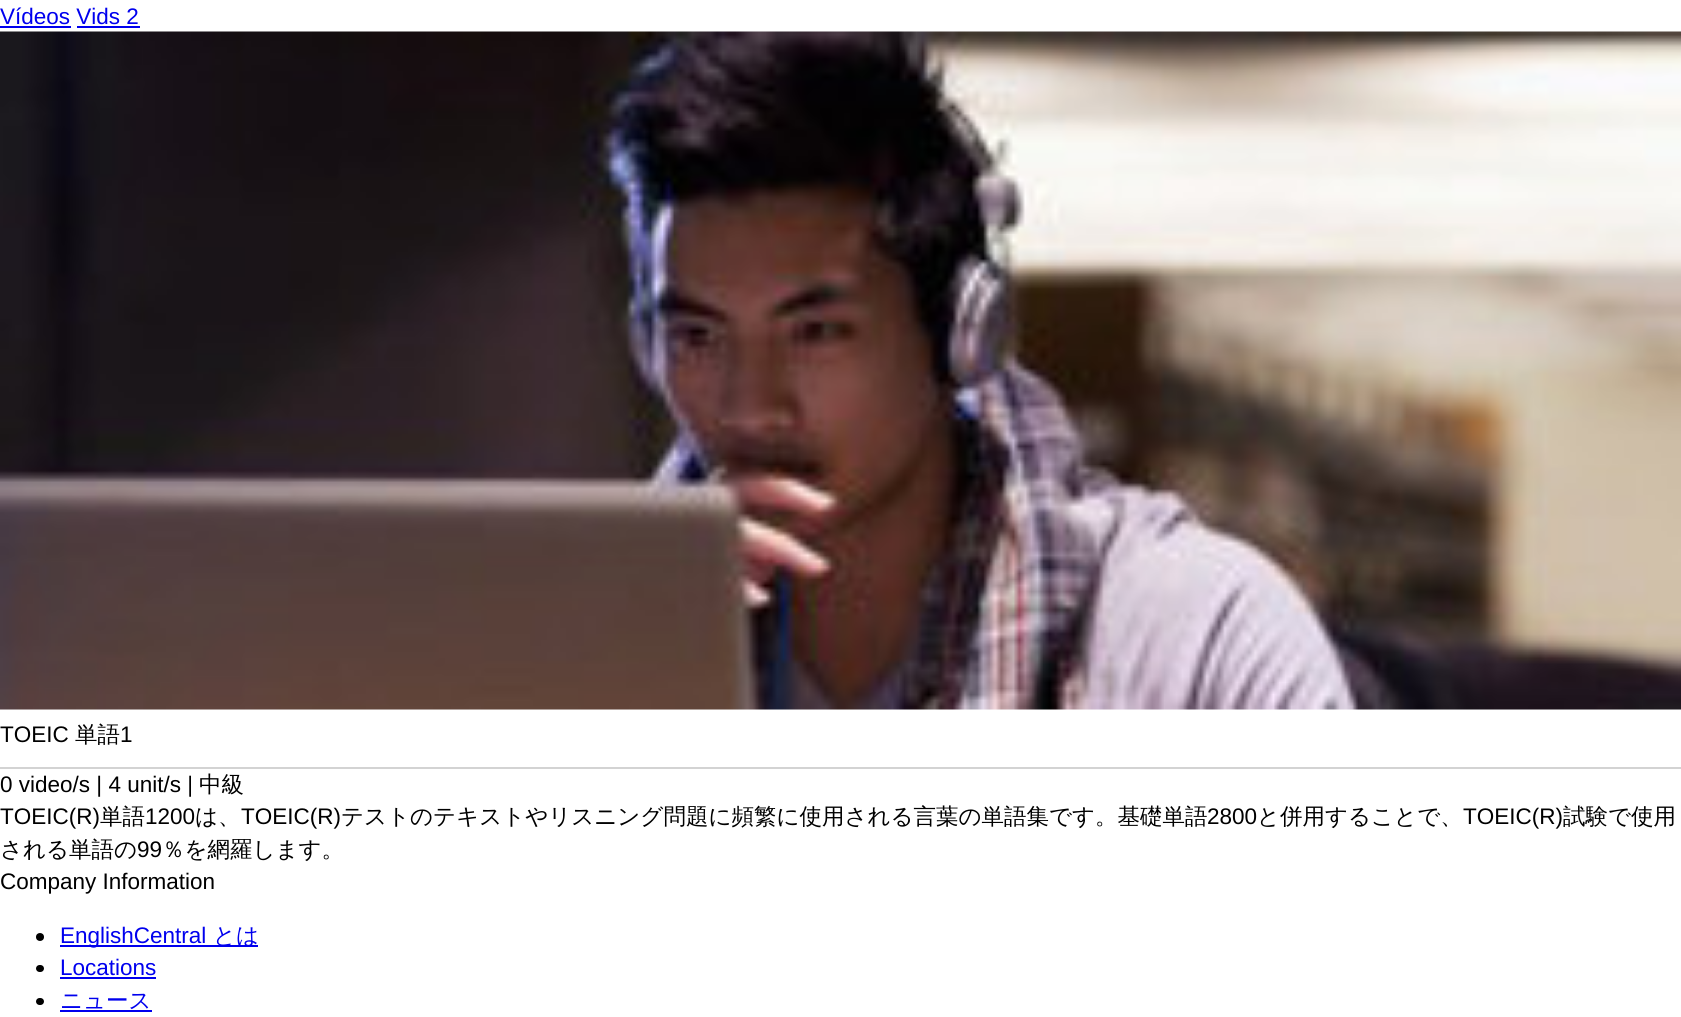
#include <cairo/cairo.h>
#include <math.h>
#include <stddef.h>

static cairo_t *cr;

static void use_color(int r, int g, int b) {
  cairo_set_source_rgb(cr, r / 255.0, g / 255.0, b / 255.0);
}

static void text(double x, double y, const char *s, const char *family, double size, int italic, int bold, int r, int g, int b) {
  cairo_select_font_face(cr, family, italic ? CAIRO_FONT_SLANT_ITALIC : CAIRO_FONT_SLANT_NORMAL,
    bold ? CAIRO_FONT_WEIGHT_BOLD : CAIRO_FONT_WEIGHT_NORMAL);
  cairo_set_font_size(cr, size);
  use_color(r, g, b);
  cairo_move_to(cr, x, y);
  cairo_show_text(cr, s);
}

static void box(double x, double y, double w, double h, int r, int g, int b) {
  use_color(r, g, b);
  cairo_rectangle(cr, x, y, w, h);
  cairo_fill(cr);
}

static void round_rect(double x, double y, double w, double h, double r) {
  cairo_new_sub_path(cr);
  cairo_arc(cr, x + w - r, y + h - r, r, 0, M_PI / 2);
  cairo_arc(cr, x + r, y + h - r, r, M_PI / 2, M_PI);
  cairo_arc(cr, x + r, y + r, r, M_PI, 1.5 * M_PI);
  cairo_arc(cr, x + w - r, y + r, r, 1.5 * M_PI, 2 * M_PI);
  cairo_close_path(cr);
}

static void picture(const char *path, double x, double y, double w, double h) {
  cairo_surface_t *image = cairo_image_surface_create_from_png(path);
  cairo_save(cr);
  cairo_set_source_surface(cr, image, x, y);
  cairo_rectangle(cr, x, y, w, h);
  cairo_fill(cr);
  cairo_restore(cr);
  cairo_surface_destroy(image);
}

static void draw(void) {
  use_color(255, 255, 255);
  cairo_paint(cr);
  box(0, 26, 71, 2, 0, 0, 238);
  box(77, 26, 63, 2, 0, 0, 238);
  picture("img_01.png", 0, 31, 1681, 679);
  box(0, 767, 1681, 2, 211, 211, 211);
  use_color(0, 0, 0);
  cairo_arc(cr, 40, 937, 4, 0, 2 * M_PI);
  cairo_fill(cr);
  box(60, 945, 198, 2, 0, 0, 238);
  use_color(0, 0, 0);
  round_rect(36, 965, 8, 7, 3.5);
  cairo_fill(cr);
  box(60, 977, 96, 2, 0, 0, 238);
  use_color(0, 0, 0);
  round_rect(36, 998, 8, 7, 3.5);
  cairo_fill(cr);
  box(60, 1010, 92, 2, 0, 0, 238);
  text(0, 24, "Vídeos Vids 2", "Liberation Sans", 22.5, 0, 0, 0, 0, 238);
  text(0, 742, "TOEIC", "Liberation Sans", 22.5, 0, 0, 0, 0, 0);
  text(75, 742, "単語", "WenQuanYi Zen Hei Medium", 22.5, 0, 0, 0, 0, 0);
  text(120, 742, "1", "Liberation Sans", 22.5, 0, 0, 0, 0, 0);
  text(0, 792, "0 video/s | 4 unit/s |", "Liberation Sans", 22.5, 0, 0, 0, 0, 0);
  text(199, 792, "中級", "WenQuanYi Zen Hei Medium", 22.5, 0, 0, 0, 0, 0);
  text(0, 824, "TOEIC(R)", "Liberation Sans", 22.5, 0, 0, 0, 0, 0);
  text(100, 824, "単語", "WenQuanYi Zen Hei Medium", 22.5, 0, 0, 0, 0, 0);
  text(145, 824, "1200", "Liberation Sans", 22.5, 0, 0, 0, 0, 0);
  text(195, 824, "は、", "WenQuanYi Zen Hei Medium", 22.5, 0, 0, 0, 0, 0);
  text(241, 824, "TOEIC(R)", "Liberation Sans", 22.5, 0, 0, 0, 0, 0);
  text(341, 824, "テストのテキストやリスニング問題に頻繁に使用される言葉の単語集です。基礎単語", "WenQuanYi Zen Hei Medium", 22.5, 0, 0, 0, 0, 0);
  text(1207, 824, "2800", "Liberation Sans", 22.5, 0, 0, 0, 0, 0);
  text(1257, 824, "と併用することで、", "WenQuanYi Zen Hei Medium", 22.5, 0, 0, 0, 0, 0);
  text(1463, 824, "TOEIC(R)", "Liberation Sans", 22.5, 0, 0, 0, 0, 0);
  text(1563, 824, "試験で使用", "WenQuanYi Zen Hei Medium", 22.5, 0, 0, 0, 0, 0);
  text(0, 857, "される単語の", "WenQuanYi Zen Hei Medium", 22.5, 0, 0, 0, 0, 0);
  text(137, 857, "99", "Liberation Sans", 22.5, 0, 0, 0, 0, 0);
  text(162, 857, "％を網羅します。", "WenQuanYi Zen Hei Medium", 22.5, 0, 0, 0, 0, 0);
  text(0, 889, "Company Information", "Liberation Sans", 22.5, 0, 0, 0, 0, 0);
  text(60, 943, "EnglishCentral", "Liberation Sans", 22.5, 0, 0, 0, 0, 238);
  text(213, 943, "とは", "WenQuanYi Zen Hei Medium", 22.5, 0, 0, 0, 0, 238);
  text(60, 975, "Locations", "Liberation Sans", 22.5, 0, 0, 0, 0, 238);
  text(60, 1008, "ニュース", "WenQuanYi Zen Hei Medium", 22.5, 0, 0, 0, 0, 238);
}

int main(void) {
  cairo_surface_t *surface = cairo_image_surface_create(CAIRO_FORMAT_RGB24, 1681, 1017);
  cr = cairo_create(surface);
  cairo_font_options_t *options = cairo_font_options_create();
  cairo_font_options_set_hint_metrics(options, CAIRO_HINT_METRICS_OFF);
  cairo_font_options_set_hint_style(options, CAIRO_HINT_STYLE_NONE);
  cairo_set_font_options(cr, options);
  cairo_set_miter_limit(cr, 4);
  draw();
  cairo_surface_write_to_png(surface, "out.png");
  cairo_font_options_destroy(options);
  cairo_destroy(cr);
  cairo_surface_destroy(surface);
  return 0;
}
